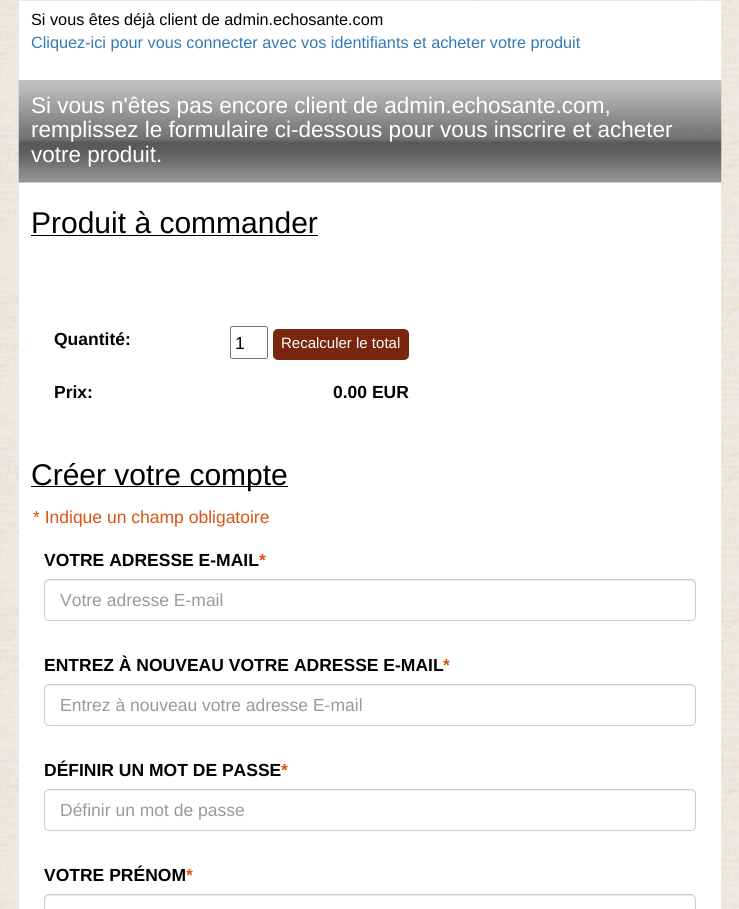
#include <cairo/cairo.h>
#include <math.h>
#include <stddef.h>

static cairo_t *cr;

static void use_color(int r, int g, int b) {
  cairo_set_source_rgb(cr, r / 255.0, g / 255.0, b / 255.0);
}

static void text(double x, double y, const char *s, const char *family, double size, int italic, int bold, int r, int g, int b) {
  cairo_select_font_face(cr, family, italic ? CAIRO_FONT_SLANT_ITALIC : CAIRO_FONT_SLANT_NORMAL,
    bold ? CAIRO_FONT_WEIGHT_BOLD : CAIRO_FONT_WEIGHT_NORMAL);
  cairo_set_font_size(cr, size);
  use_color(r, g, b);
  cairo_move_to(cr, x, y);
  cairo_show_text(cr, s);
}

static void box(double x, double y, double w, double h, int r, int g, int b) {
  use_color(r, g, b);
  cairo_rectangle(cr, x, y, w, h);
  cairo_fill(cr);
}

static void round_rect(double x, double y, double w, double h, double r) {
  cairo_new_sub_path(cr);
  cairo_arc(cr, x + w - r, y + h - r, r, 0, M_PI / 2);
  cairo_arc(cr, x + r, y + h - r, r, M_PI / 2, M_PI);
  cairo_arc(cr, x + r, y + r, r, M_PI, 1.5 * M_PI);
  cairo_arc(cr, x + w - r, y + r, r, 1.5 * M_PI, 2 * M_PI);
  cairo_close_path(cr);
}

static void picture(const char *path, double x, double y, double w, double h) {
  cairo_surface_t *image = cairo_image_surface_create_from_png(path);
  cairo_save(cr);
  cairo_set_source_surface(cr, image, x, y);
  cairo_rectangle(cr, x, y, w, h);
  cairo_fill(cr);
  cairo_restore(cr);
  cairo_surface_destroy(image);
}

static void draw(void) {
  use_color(255, 255, 255);
  cairo_paint(cr);
  picture("img_01.png", 0, 0, 739, 909);
  box(19, 1, 702, 908, 255, 255, 255);
  picture("img_02.png", 18, 80, 704, 103);
  box(31, 235, 287, 1, 0, 0, 0);
  round_rect(230.5, 326.5, 37, 32, 2);
  use_color(118, 118, 118);
  cairo_set_line_width(cr, 1);
  cairo_stroke(cr);
  use_color(120, 39, 14);
  round_rect(273, 329, 136, 31, 5);
  cairo_fill(cr);
  box(31, 486, 257, 1, 0, 0, 0);
  use_color(236, 236, 236);
  cairo_new_path(cr);
  cairo_move_to(cr, 49, 581);
  cairo_line_to(cr, 691, 581);
  cairo_curve_to(cr, 693, 581, 695, 583, 695, 585);
  cairo_curve_to(cr, 695, 582, 694, 580, 691, 580);
  cairo_line_to(cr, 49, 580);
  cairo_line_to(cr, 46, 581);
  cairo_line_to(cr, 45, 582);
  cairo_line_to(cr, 45, 585);
  cairo_curve_to(cr, 45, 583, 47, 581, 49, 581);
  cairo_close_path(cr);
  cairo_fill(cr);
  round_rect(44.5, 579.5, 651, 41, 4.5);
  use_color(204, 204, 204);
  cairo_stroke(cr);
  use_color(236, 236, 236);
  cairo_new_path(cr);
  cairo_move_to(cr, 49, 686);
  cairo_line_to(cr, 691, 686);
  cairo_curve_to(cr, 693, 686, 695, 688, 695, 690);
  cairo_curve_to(cr, 695, 687, 694, 685, 691, 685);
  cairo_line_to(cr, 49, 685);
  cairo_line_to(cr, 46, 686);
  cairo_line_to(cr, 45, 687);
  cairo_line_to(cr, 45, 690);
  cairo_curve_to(cr, 45, 688, 47, 686, 49, 686);
  cairo_close_path(cr);
  cairo_fill(cr);
  round_rect(44.5, 684.5, 651, 41, 4.5);
  use_color(204, 204, 204);
  cairo_stroke(cr);
  use_color(236, 236, 236);
  cairo_new_path(cr);
  cairo_move_to(cr, 49, 791);
  cairo_line_to(cr, 691, 791);
  cairo_curve_to(cr, 693, 791, 695, 793, 695, 795);
  cairo_curve_to(cr, 695, 792, 694, 790, 691, 790);
  cairo_line_to(cr, 49, 790);
  cairo_line_to(cr, 46, 791);
  cairo_line_to(cr, 45, 792);
  cairo_line_to(cr, 45, 795);
  cairo_curve_to(cr, 45, 793, 47, 791, 49, 791);
  cairo_close_path(cr);
  cairo_fill(cr);
  round_rect(44.5, 789.5, 651, 41, 4.5);
  use_color(204, 204, 204);
  cairo_stroke(cr);
  use_color(236, 236, 236);
  cairo_new_path(cr);
  cairo_move_to(cr, 49, 896);
  cairo_line_to(cr, 691, 896);
  cairo_curve_to(cr, 693, 896, 695, 898, 695, 900);
  cairo_curve_to(cr, 695, 897, 694, 895, 691, 895);
  cairo_line_to(cr, 49, 895);
  cairo_line_to(cr, 46, 896);
  cairo_line_to(cr, 45, 897);
  cairo_line_to(cr, 45, 900);
  cairo_curve_to(cr, 45, 898, 47, 896, 49, 896);
  cairo_close_path(cr);
  cairo_fill(cr);
  round_rect(44.5, 894.5, 651, 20, 4.5);
  use_color(204, 204, 204);
  cairo_stroke(cr);
  text(31, 25, "Si vous êtes déjà client de admin.echosante.com", "Liberation Sans", 16.25, 0, 0, 0, 0, 0);
  text(31, 48, "Cliquez-ici pour vous connecter avec vos identifiants et acheter votre produit", "Liberation Sans", 16.25, 0, 0, 51, 122, 183);
  text(31, 113, "Si vous n'êtes pas encore client de admin.echosante.com,", "Liberation Sans", 22.5, 0, 0, 255, 255, 255);
  text(31, 137, "remplissez le formulaire ci-dessous pour vous inscrire et acheter", "Liberation Sans", 22.5, 0, 0, 255, 255, 255);
  text(31, 162, "votre produit.", "Liberation Sans", 22.5, 0, 0, 255, 255, 255);
  text(31, 233, "Produit à commander", "Liberation Sans", 30, 0, 0, 0, 0, 0);
  text(54, 345, "Quantité:", "Liberation Sans", 17.5, 0, 1, 0, 0, 0);
  text(235, 349, "1", "Liberation Sans", 17.5, 0, 0, 0, 0, 0);
  text(281, 348, "Recalculer le total", "Liberation Sans", 15, 0, 0, 255, 255, 255);
  text(54, 398, "Prix:", "Liberation Sans", 17.5, 0, 1, 0, 0, 0);
  text(333, 398, "0.00 EUR", "Liberation Sans", 17.5, 0, 1, 0, 0, 0);
  text(31, 485, "Créer votre compte", "Liberation Sans", 30, 0, 0, 0, 0, 0);
  text(33, 523, "* Indique un champ obligatoire", "Liberation Sans", 17.5, 0, 0, 221, 81, 19);
  text(44, 566, "VOTRE ADRESSE E-MAIL", "Liberation Sans", 17.5, 0, 1, 0, 0, 0);
  text(259, 566, "*", "Liberation Sans", 17.5, 0, 1, 221, 81, 19);
  text(60, 606, "Votre adresse E-mail", "Liberation Sans", 17.5, 0, 0, 153, 153, 153);
  text(44, 671, "ENTREZ À NOUVEAU VOTRE ADRESSE E-MAIL", "Liberation Sans", 17.5, 0, 1, 0, 0, 0);
  text(443, 671, "*", "Liberation Sans", 17.5, 0, 1, 221, 81, 19);
  text(60, 711, "Entrez à nouveau votre adresse E-mail", "Liberation Sans", 17.5, 0, 0, 153, 153, 153);
  text(44, 776, "DÉFINIR UN MOT DE PASSE", "Liberation Sans", 17.5, 0, 1, 0, 0, 0);
  text(281, 776, "*", "Liberation Sans", 17.5, 0, 1, 221, 81, 19);
  text(60, 816, "Définir un mot de passe", "Liberation Sans", 17.5, 0, 0, 153, 153, 153);
  text(44, 881, "VOTRE PRÉNOM", "Liberation Sans", 17.5, 0, 1, 0, 0, 0);
  text(186, 881, "*", "Liberation Sans", 17.5, 0, 1, 221, 81, 19);
}

int main(void) {
  cairo_surface_t *surface = cairo_image_surface_create(CAIRO_FORMAT_RGB24, 739, 909);
  cr = cairo_create(surface);
  cairo_font_options_t *options = cairo_font_options_create();
  cairo_font_options_set_hint_metrics(options, CAIRO_HINT_METRICS_OFF);
  cairo_font_options_set_hint_style(options, CAIRO_HINT_STYLE_NONE);
  cairo_set_font_options(cr, options);
  cairo_set_miter_limit(cr, 4);
  draw();
  cairo_surface_write_to_png(surface, "out.png");
  cairo_font_options_destroy(options);
  cairo_destroy(cr);
  cairo_surface_destroy(surface);
  return 0;
}
